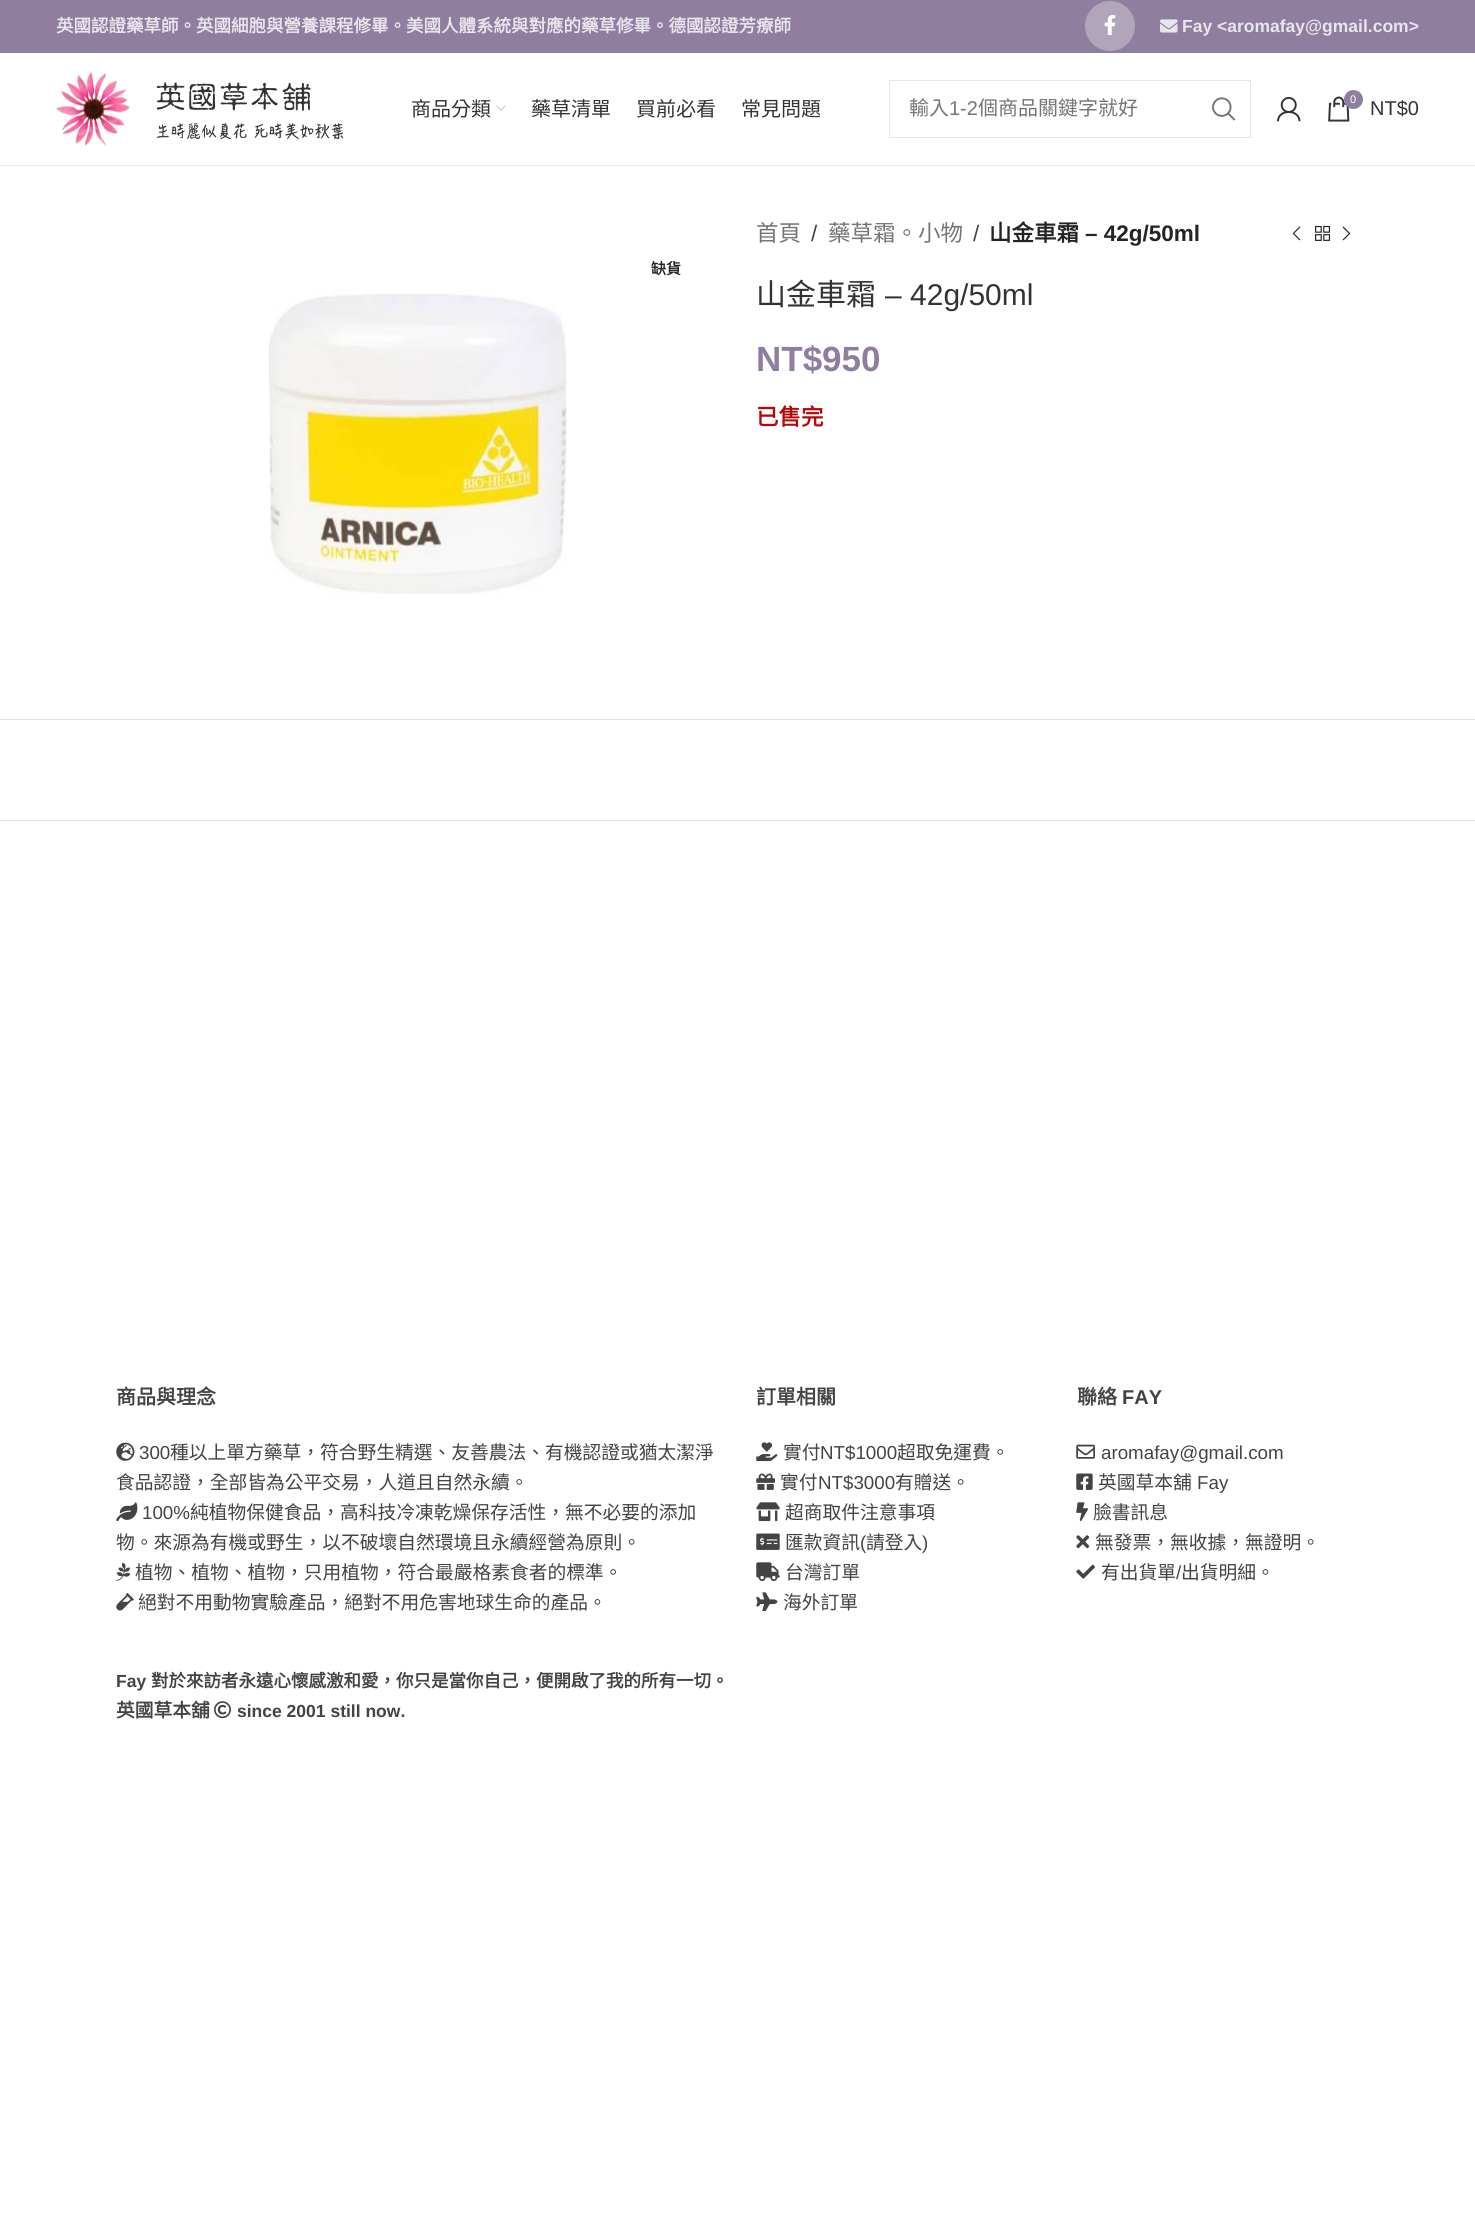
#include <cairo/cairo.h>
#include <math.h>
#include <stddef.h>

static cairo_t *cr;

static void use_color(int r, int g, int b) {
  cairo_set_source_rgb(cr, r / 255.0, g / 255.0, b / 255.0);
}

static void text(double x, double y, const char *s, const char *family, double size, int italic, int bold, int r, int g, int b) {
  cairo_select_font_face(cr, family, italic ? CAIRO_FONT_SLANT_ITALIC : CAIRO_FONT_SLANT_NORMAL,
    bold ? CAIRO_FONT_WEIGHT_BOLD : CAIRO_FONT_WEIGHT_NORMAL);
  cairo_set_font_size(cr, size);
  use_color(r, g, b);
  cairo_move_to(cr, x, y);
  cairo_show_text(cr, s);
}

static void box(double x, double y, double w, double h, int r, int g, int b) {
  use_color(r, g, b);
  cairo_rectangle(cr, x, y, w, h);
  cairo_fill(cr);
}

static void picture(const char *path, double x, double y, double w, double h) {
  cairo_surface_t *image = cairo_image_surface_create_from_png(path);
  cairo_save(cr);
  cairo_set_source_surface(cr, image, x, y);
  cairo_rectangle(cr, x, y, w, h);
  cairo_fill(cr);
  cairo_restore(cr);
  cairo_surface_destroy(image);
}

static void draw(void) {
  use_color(255, 255, 255);
  cairo_paint(cr);
  box(0, 0, 1475, 53, 143, 126, 159);
  use_color(177, 165, 188);
  cairo_arc(cr, 1110, 26, 25, 0, 2 * M_PI);
  cairo_fill(cr);
  picture("img_01.png", 1104, 15, 12, 20);
  picture("img_02.png", 1160, 19, 18, 14);
  box(0, 165, 1475, 1, 230, 230, 230);
  picture("img_03.png", 56, 72, 74, 74);
  picture("img_04.png", 156, 82, 188, 58);
  picture("img_05.png", 496, 105, 10, 6);
  cairo_rectangle(cr, 889.5, 80.5, 361, 57);
  cairo_set_line_width(cr, 1);
  cairo_stroke(cr);
  picture("img_06.png", 1212, 97, 24, 24);
  picture("img_07.png", 1277, 97, 24, 25);
  picture("img_08.png", 1328, 96, 22, 26);
  use_color(143, 126, 159);
  cairo_arc(cr, 1353.5, 99.5, 9.5, 0, 2 * M_PI);
  cairo_fill(cr);
  picture("img_09.png", 268, 289, 299, 306);
  picture("img_10.png", 1292, 226, 9, 15);
  picture("img_11.png", 1315, 225, 15, 16);
  picture("img_12.png", 1342, 226, 9, 15);
  box(0, 719, 1475, 1, 228, 228, 228);
  box(0, 820, 1475, 1, 228, 228, 228);
  picture("img_13.png", 116, 1442, 19, 19);
  picture("img_14.png", 116, 1502, 22, 20);
  picture("img_15.png", 116, 1562, 15, 19);
  picture("img_16.png", 116, 1593, 18, 18);
  picture("img_17.png", 756, 1442, 22, 20);
  picture("img_18.png", 756, 1473, 19, 17);
  picture("img_19.png", 756, 1502, 24, 20);
  picture("img_20.png", 756, 1533, 24, 17);
  picture("img_21.png", 756, 1562, 24, 20);
  picture("img_22.png", 756, 1592, 22, 20);
  picture("img_23.png", 1076, 1444, 19, 15);
  picture("img_24.png", 1076, 1473, 17, 17);
  picture("img_25.png", 1076, 1502, 12, 20);
  picture("img_26.png", 1076, 1535, 14, 14);
  picture("img_27.png", 1076, 1564, 19, 15);
  picture("img_28.png", 214, 1701, 17, 18);
  text(56, 32, "英國認證藥草師。英國細胞與營養課程修畢。美國人體系統與對應的藥草修畢。德國認證芳療師", "Noto Sans CJK TC", 17.5, 0, 1, 233, 229, 236);
  text(1182, 32, "Fay <aromafay@gmail.com>", "Liberation Sans", 17.5, 0, 1, 233, 229, 236);
  text(411, 116, "商品分類", "Noto Sans CJK TC", 20, 0, 0, 51, 51, 51);
  text(531, 116, "藥草清單", "Noto Sans CJK TC", 20, 0, 0, 51, 51, 51);
  text(636, 116, "買前必看", "Noto Sans CJK TC", 20, 0, 0, 51, 51, 51);
  text(741, 116, "常見問題", "Noto Sans CJK TC", 20, 0, 0, 51, 51, 51);
  text(909, 115, "輸入", "Noto Sans CJK TC", 20, 0, 0, 118, 118, 118);
  text(949, 115, "1-2", "Liberation Sans", 20, 0, 0, 118, 118, 118);
  text(978, 115, "個商品關鍵字就好", "Noto Sans CJK TC", 20, 0, 0, 118, 118, 118);
  text(1350, 103, "0", "Liberation Sans", 11, 0, 0, 255, 255, 255);
  text(1370, 115, "NT$0", "Liberation Sans", 20, 0, 0, 51, 51, 51);
  text(651, 274, "缺貨", "Noto Sans CJK TC", 15, 0, 1, 36, 36, 36);
  text(756, 241, "首頁", "Noto Sans CJK TC", 22.5, 0, 0, 118, 118, 118);
  text(811, 241, "/", "Liberation Sans", 22.5, 0, 0, 68, 68, 68);
  text(828, 241, "藥草霜。小物", "Noto Sans CJK TC", 22.5, 0, 0, 118, 118, 118);
  text(973, 241, "/", "Liberation Sans", 22.5, 0, 0, 68, 68, 68);
  text(989, 241, "山金車霜", "Noto Sans CJK TC", 22.5, 0, 1, 36, 36, 36);
  text(1085, 241, "– 42g/50ml", "Liberation Sans", 22.5, 0, 1, 36, 36, 36);
  text(756, 305, "山金車霜", "Noto Sans CJK TC", 30, 0, 0, 51, 51, 51);
  text(885, 305, "– 42g/50ml", "Liberation Sans", 30, 0, 0, 51, 51, 51);
  text(756, 371, "NT$950", "Liberation Sans", 35, 0, 1, 143, 126, 159);
  text(756, 425, "已售完", "Noto Sans CJK TC", 22.5, 0, 1, 181, 8, 8);
  text(116, 1404, "商品與理念", "Noto Sans CJK TC", 20, 0, 1, 68, 68, 68);
  text(139, 1459, "300", "Liberation Sans", 18.75, 0, 0, 68, 68, 68);
  text(170, 1459, "種以上單方藥草，符合野生精選、友善農法、有機認證或猶太潔淨", "Noto Sans CJK TC", 18.75, 0, 0, 68, 68, 68);
  text(116, 1489, "食品認證，全部皆為公平交易，人道且自然永續。", "Noto Sans CJK TC", 18.75, 0, 0, 68, 68, 68);
  text(142, 1519, "100%", "Liberation Sans", 18.75, 0, 0, 68, 68, 68);
  text(190, 1519, "純植物保健食品，高科技冷凍乾燥保存活性，無不必要的添加", "Noto Sans CJK TC", 18.75, 0, 0, 68, 68, 68);
  text(116, 1549, "物。來源為有機或野生，以不破壞自然環境且永續經營為原則。", "Noto Sans CJK TC", 18.75, 0, 0, 68, 68, 68);
  text(135, 1579, "植物、植物、植物，只用植物，符合最嚴格素食者的標準。", "Noto Sans CJK TC", 18.75, 0, 0, 68, 68, 68);
  text(138, 1609, "絕對不用動物實驗產品，絕對不用危害地球生命的產品。", "Noto Sans CJK TC", 18.75, 0, 0, 68, 68, 68);
  text(756, 1404, "訂單相關", "Noto Sans CJK TC", 20, 0, 1, 68, 68, 68);
  text(783, 1459, "實付", "Noto Sans CJK TC", 18.75, 0, 0, 68, 68, 68);
  text(820, 1459, "NT$1000", "Liberation Sans", 18.75, 0, 0, 68, 68, 68);
  text(897, 1459, "超取免運費。", "Noto Sans CJK TC", 18.75, 0, 0, 68, 68, 68);
  text(780, 1489, "實付", "Noto Sans CJK TC", 18.75, 0, 0, 68, 68, 68);
  text(818, 1489, "NT$3000", "Liberation Sans", 18.75, 0, 0, 68, 68, 68);
  text(895, 1489, "有贈送。", "Noto Sans CJK TC", 18.75, 0, 0, 68, 68, 68);
  text(785, 1519, "超商取件注意事項", "Noto Sans CJK TC", 18.75, 0, 0, 68, 68, 68);
  text(785, 1549, "匯款資訊", "Noto Sans CJK TC", 18.75, 0, 0, 68, 68, 68);
  text(860, 1549, "(", "Liberation Sans", 18.75, 0, 0, 68, 68, 68);
  text(866, 1549, "請登入", "Noto Sans CJK TC", 18.75, 0, 0, 68, 68, 68);
  text(922, 1549, ")", "Liberation Sans", 18.75, 0, 0, 68, 68, 68);
  text(785, 1579, "台灣訂單", "Noto Sans CJK TC", 18.75, 0, 0, 68, 68, 68);
  text(783, 1609, "海外訂單", "Noto Sans CJK TC", 18.75, 0, 0, 68, 68, 68);
  text(1077, 1404, "聯絡", "Noto Sans CJK TC", 20, 0, 1, 68, 68, 68);
  text(1122, 1404, "FAY", "Liberation Sans", 20, 0, 1, 68, 68, 68);
  text(1101, 1459, "aromafay@gmail.com", "Liberation Sans", 18.75, 0, 0, 68, 68, 68);
  text(1098, 1489, "英國草本舖", "Noto Sans CJK TC", 18.75, 0, 0, 68, 68, 68);
  text(1197, 1489, "Fay", "Liberation Sans", 18.75, 0, 0, 68, 68, 68);
  text(1093, 1519, "臉書訊息", "Noto Sans CJK TC", 18.75, 0, 0, 68, 68, 68);
  text(1095, 1549, "無發票，無收據，無證明。", "Noto Sans CJK TC", 18.75, 0, 0, 68, 68, 68);
  text(1101, 1579, "有出貨單", "Noto Sans CJK TC", 18.75, 0, 0, 68, 68, 68);
  text(1176, 1579, "/", "Liberation Sans", 18.75, 0, 0, 68, 68, 68);
  text(1181, 1579, "出貨明細。", "Noto Sans CJK TC", 18.75, 0, 0, 68, 68, 68);
  text(116, 1687, "Fay", "Liberation Sans", 17.5, 0, 1, 68, 68, 68);
  text(151, 1687, "對於來訪者永遠心懷感激和愛，你只是當你自己，便開啟了我的所有一切。", "Noto Sans CJK TC", 17.5, 0, 1, 68, 68, 68);
  text(116, 1717, "英國草本舖", "Noto Sans CJK TC", 18.75, 0, 1, 68, 68, 68);
  text(237, 1717, "since 2001 still now.", "Liberation Sans", 17.5, 0, 1, 68, 68, 68);
}

int main(void) {
  cairo_surface_t *surface = cairo_image_surface_create(CAIRO_FORMAT_RGB24, 1475, 2236);
  cr = cairo_create(surface);
  cairo_font_options_t *options = cairo_font_options_create();
  cairo_font_options_set_hint_metrics(options, CAIRO_HINT_METRICS_OFF);
  cairo_font_options_set_hint_style(options, CAIRO_HINT_STYLE_NONE);
  cairo_set_font_options(cr, options);
  cairo_set_miter_limit(cr, 4);
  draw();
  cairo_surface_write_to_png(surface, "out.png");
  cairo_font_options_destroy(options);
  cairo_destroy(cr);
  cairo_surface_destroy(surface);
  return 0;
}
